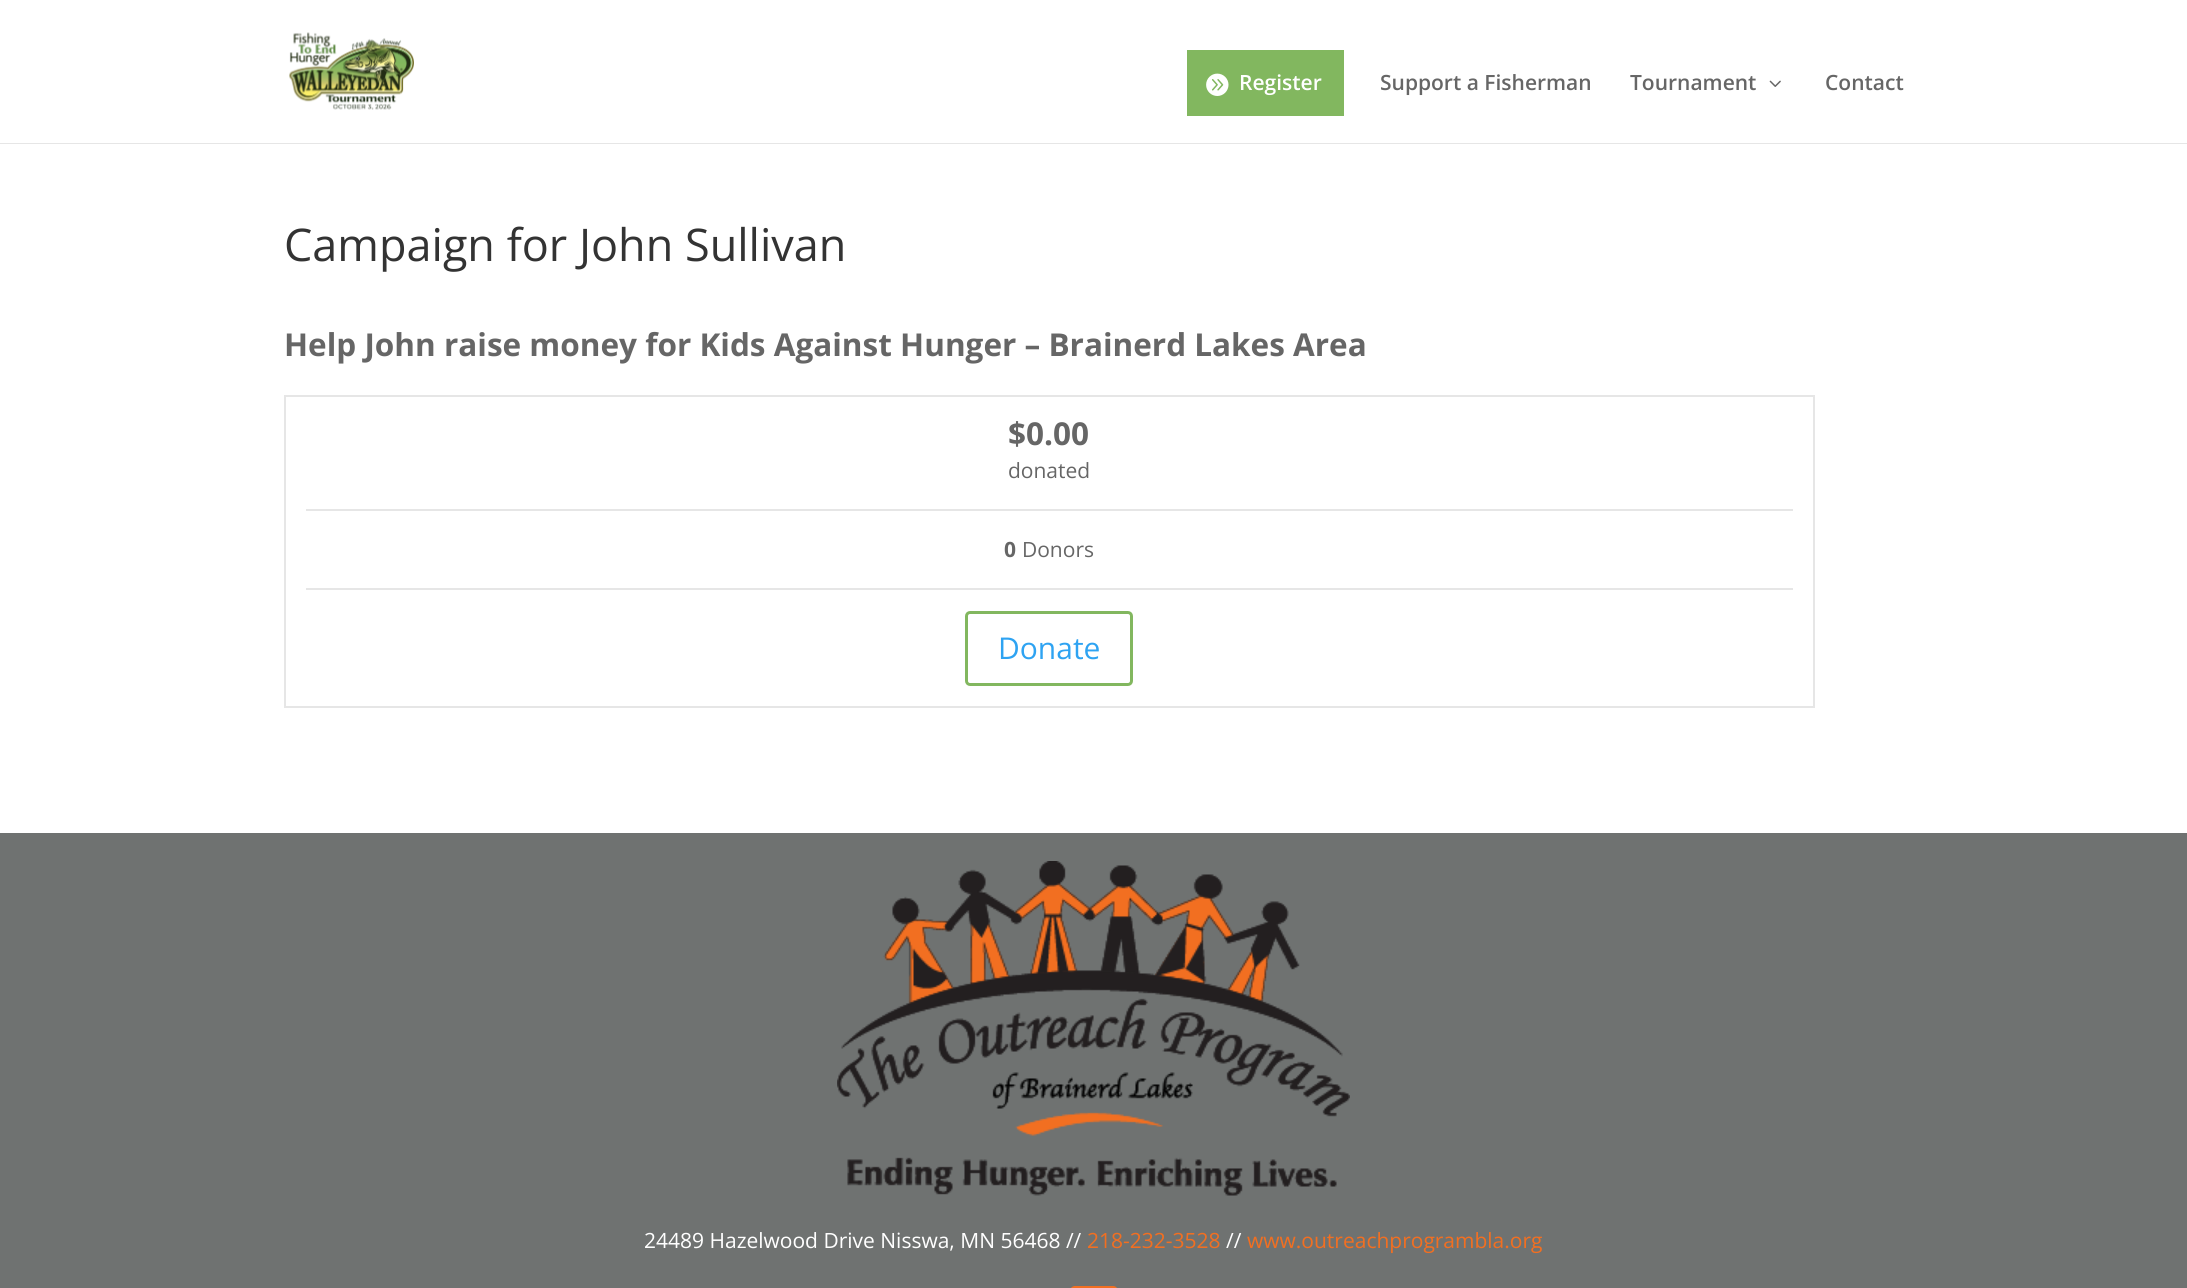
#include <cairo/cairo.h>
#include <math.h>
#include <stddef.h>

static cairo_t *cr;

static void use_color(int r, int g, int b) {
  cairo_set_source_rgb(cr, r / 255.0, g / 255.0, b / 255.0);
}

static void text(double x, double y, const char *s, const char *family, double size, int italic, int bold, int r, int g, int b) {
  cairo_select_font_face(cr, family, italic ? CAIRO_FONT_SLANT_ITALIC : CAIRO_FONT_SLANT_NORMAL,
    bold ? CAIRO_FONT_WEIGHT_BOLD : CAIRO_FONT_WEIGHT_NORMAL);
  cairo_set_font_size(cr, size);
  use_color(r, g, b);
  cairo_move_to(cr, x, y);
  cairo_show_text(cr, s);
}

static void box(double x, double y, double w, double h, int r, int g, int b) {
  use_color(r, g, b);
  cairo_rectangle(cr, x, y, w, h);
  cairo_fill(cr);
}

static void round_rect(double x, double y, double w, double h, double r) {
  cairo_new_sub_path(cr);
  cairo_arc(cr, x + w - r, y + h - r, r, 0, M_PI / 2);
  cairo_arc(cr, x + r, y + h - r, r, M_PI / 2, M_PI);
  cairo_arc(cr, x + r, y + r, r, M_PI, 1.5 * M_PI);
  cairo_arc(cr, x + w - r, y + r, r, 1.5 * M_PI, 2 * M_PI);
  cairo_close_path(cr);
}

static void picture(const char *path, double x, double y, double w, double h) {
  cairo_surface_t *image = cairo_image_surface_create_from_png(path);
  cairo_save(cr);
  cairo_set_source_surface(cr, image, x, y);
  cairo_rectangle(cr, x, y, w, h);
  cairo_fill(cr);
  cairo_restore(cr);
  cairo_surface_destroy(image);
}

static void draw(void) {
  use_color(255, 255, 255);
  cairo_paint(cr);
  box(0, 143, 2187, 1, 230, 230, 230);
  picture("img_01.png", 289, 32, 125, 78);
  box(1187, 50, 157, 66, 130, 183, 95);
  picture("img_02.png", 1206, 73, 23, 23);
  picture("img_03.png", 1769, 80, 12, 7);
  cairo_rectangle(cr, 285, 396, 1529, 311);
  use_color(230, 230, 230);
  cairo_stroke(cr);
  box(306, 509, 1487, 2, 230, 230, 230);
  box(306, 588, 1487, 2, 230, 230, 230);
  round_rect(966.5, 612.5, 165, 72, 3.5);
  use_color(130, 183, 95);
  cairo_set_line_width(cr, 3);
  cairo_stroke(cr);
  box(0, 833, 2187, 455, 111, 114, 113);
  picture("img_04.png", 837, 861, 513, 335);
  use_color(242, 111, 33);
  round_rect(1070, 1286, 48, 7, 5);
  cairo_fill(cr);
  text(1239, 90, "Register", "Open Sans SemiBold", 21, 0, 0, 255, 255, 255);
  text(1380, 90, "Support a Fisherman", "Open Sans SemiBold", 21, 0, 0, 102, 102, 102);
  text(1630, 90, "Tournament", "Open Sans SemiBold", 21, 0, 0, 102, 102, 102);
  text(1825, 90, "Contact", "Open Sans SemiBold", 21, 0, 0, 102, 102, 102);
  text(284, 261, "Campaign for John Sullivan", "Open Sans", 45, 0, 0, 51, 51, 51);
  text(284, 356, "Help John raise money for Kids Against Hunger – Brainerd Lakes Area", "Open Sans", 31.5, 0, 1, 102, 102, 102);
  text(1008, 445, "$0.00", "Open Sans", 31.5, 0, 1, 102, 102, 102);
  text(1008, 478, "donated", "Open Sans", 21, 0, 0, 102, 102, 102);
  text(1004, 557, "0", "Open Sans", 21, 0, 1, 102, 102, 102);
  text(1022, 557, "Donors", "Open Sans", 21, 0, 0, 102, 102, 102);
  text(998, 659, "Donate", "Open Sans", 30, 0, 0, 46, 163, 242);
  text(644, 1248, "24489 Hazelwood Drive Nisswa, MN 56468 //", "Open Sans", 21, 0, 0, 255, 255, 255);
  text(1087, 1248, "218-232-3528", "Open Sans", 21, 0, 0, 242, 111, 33);
  text(1226, 1248, "//", "Open Sans", 21, 0, 0, 255, 255, 255);
  text(1247, 1248, "www.outreachprogrambla.org", "Open Sans", 21, 0, 0, 242, 111, 33);
}

int main(void) {
  cairo_surface_t *surface = cairo_image_surface_create(CAIRO_FORMAT_RGB24, 2187, 1288);
  cr = cairo_create(surface);
  cairo_font_options_t *options = cairo_font_options_create();
  cairo_font_options_set_hint_metrics(options, CAIRO_HINT_METRICS_OFF);
  cairo_font_options_set_hint_style(options, CAIRO_HINT_STYLE_NONE);
  cairo_set_font_options(cr, options);
  cairo_set_miter_limit(cr, 4);
  draw();
  cairo_surface_write_to_png(surface, "out.png");
  cairo_font_options_destroy(options);
  cairo_destroy(cr);
  cairo_surface_destroy(surface);
  return 0;
}
